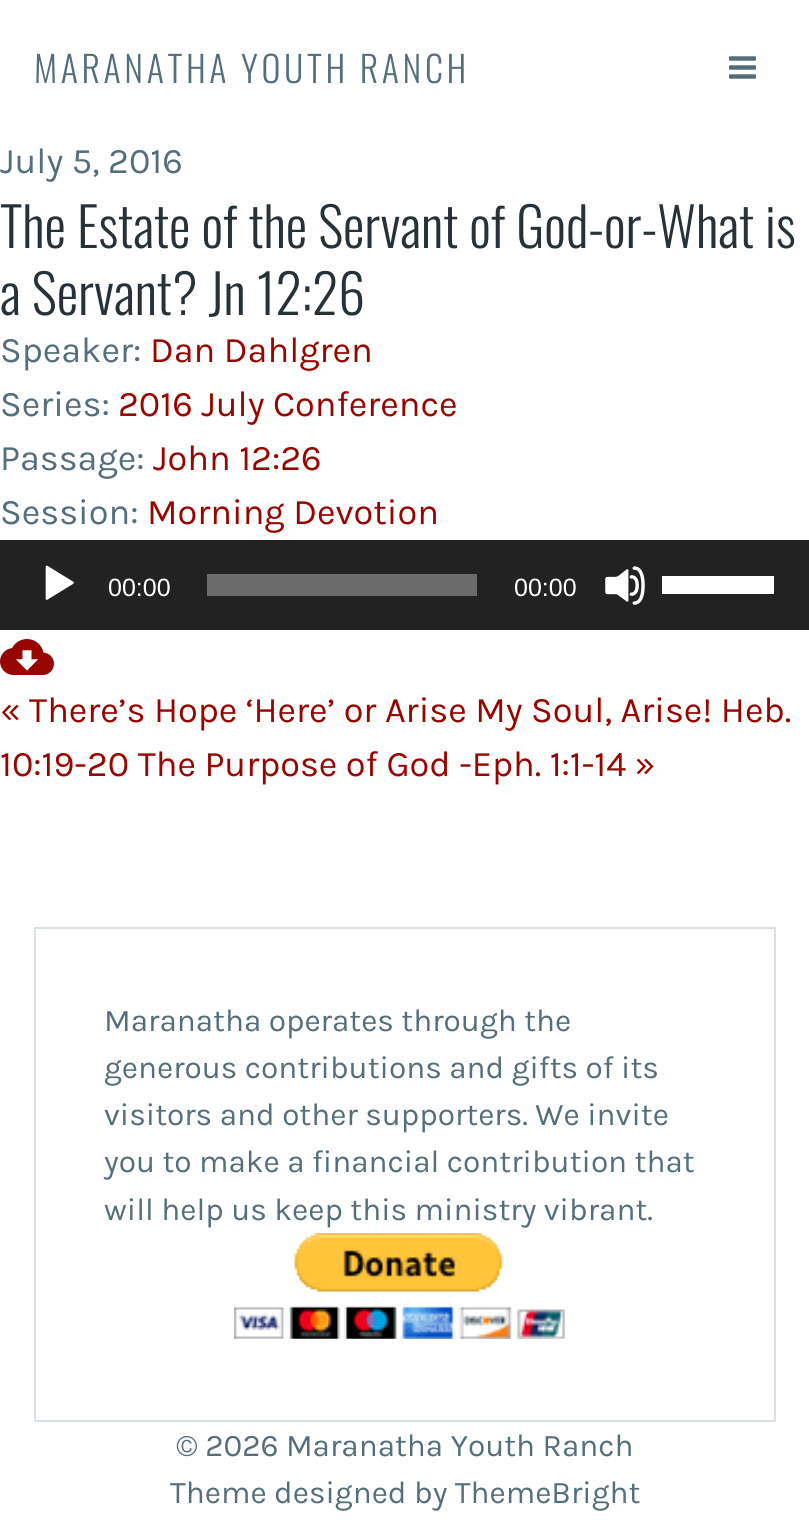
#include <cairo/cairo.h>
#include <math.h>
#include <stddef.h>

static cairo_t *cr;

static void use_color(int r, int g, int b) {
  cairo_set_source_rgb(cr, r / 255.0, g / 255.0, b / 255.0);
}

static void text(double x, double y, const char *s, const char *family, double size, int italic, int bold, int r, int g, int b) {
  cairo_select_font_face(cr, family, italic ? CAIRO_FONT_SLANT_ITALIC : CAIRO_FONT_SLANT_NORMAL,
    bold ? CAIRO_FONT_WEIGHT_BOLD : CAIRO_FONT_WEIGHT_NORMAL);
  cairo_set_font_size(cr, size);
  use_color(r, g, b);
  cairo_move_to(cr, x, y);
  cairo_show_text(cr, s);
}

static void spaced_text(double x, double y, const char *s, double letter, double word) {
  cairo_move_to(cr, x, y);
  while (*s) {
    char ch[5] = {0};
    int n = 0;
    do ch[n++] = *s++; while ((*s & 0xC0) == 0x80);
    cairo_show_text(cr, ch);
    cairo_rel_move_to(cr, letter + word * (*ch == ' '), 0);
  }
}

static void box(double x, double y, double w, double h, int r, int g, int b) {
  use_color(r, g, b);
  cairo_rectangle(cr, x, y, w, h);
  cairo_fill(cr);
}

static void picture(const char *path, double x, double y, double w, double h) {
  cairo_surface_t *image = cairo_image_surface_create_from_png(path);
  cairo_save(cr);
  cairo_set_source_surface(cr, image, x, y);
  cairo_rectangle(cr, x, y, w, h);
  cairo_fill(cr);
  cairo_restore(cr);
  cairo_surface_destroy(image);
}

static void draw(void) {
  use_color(255, 255, 255);
  cairo_paint(cr);
  picture("img_01.png", 729, 56, 27, 23);
  box(0, 540, 809, 90, 34, 34, 34);
  picture("img_02.png", 45, 565, 29, 35);
  box(207, 574, 270, 22, 107, 107, 107);
  picture("img_03.png", 605, 566, 40, 39);
  box(662, 576, 112, 18, 255, 255, 255);
  picture("img_04.png", 0, 639, 54, 36);
  cairo_rectangle(cr, 35, 928, 740, 493);
  use_color(219, 226, 229);
  cairo_stroke(cr);
  picture("img_05.png", 234, 1233, 331, 106);
  cairo_select_font_face(cr, "Oswald Light", CAIRO_FONT_SLANT_NORMAL, CAIRO_FONT_WEIGHT_NORMAL);
  cairo_set_font_size(cr, 36);
  use_color(84, 110, 122);
  spaced_text(34, 83, "MARANATHA YOUTH RANCH", 3.6, 0);
  text(0, 173, "July 5, 2016", "Karla", 36, 0, 0, 84, 110, 122);
  text(0, 248, "The Estate of the Servant of God-or-What is", "Oswald Light", 54, 0, 0, 38, 50, 56);
  text(0, 315, "a Servant? Jn 12:26", "Oswald Light", 54, 0, 0, 38, 50, 56);
  text(0, 362, "Speaker:", "Karla", 36, 0, 0, 84, 110, 122);
  text(150, 362, "Dan Dahlgren", "Karla", 36, 0, 0, 150, 5, 0);
  text(0, 416, "Series:", "Karla", 36, 0, 0, 84, 110, 122);
  text(118, 416, "2016 July Conference", "Karla", 36, 0, 0, 150, 5, 0);
  text(0, 470, "Passage:", "Karla", 36, 0, 0, 84, 110, 122);
  text(153, 470, "John 12:26", "Karla", 36, 0, 0, 150, 5, 0);
  text(0, 524, "Session:", "Karla", 36, 0, 0, 84, 110, 122);
  text(147, 524, "Morning Devotion", "Karla", 36, 0, 0, 150, 5, 0);
  text(108, 596, "00:00", "Liberation Sans", 25, 0, 0, 255, 255, 255);
  text(514, 596, "00:00", "Liberation Sans", 25, 0, 0, 255, 255, 255);
  text(0, 722, "« There’s Hope ‘Here’ or Arise My Soul, Arise! Heb.", "Karla", 36, 0, 0, 150, 5, 0);
  text(0, 776, "10:19-20 The Purpose of God -Eph. 1:1-14 »", "Karla", 36, 0, 0, 150, 5, 0);
  text(104, 1031, "Maranatha operates through the", "Karla", 31.5, 0, 0, 84, 110, 122);
  text(104, 1078, "generous contributions and gifts of its", "Karla", 31.5, 0, 0, 84, 110, 122);
  text(104, 1125, "visitors and other supporters. We invite", "Karla", 31.5, 0, 0, 84, 110, 122);
  text(104, 1172, "you to make a financial contribution that", "Karla", 31.5, 0, 0, 84, 110, 122);
  text(104, 1220, "will help us keep this ministry vibrant.", "Karla", 31.5, 0, 0, 84, 110, 122);
  text(176, 1456, "© 2026 Maranatha Youth Ranch", "Karla", 31.5, 0, 0, 84, 110, 122);
  text(170, 1503, "Theme designed by ThemeBright", "Karla", 31.5, 0, 0, 84, 110, 122);
}

int main(void) {
  cairo_surface_t *surface = cairo_image_surface_create(CAIRO_FORMAT_RGB24, 809, 1531);
  cr = cairo_create(surface);
  cairo_font_options_t *options = cairo_font_options_create();
  cairo_font_options_set_hint_metrics(options, CAIRO_HINT_METRICS_OFF);
  cairo_font_options_set_hint_style(options, CAIRO_HINT_STYLE_NONE);
  cairo_set_font_options(cr, options);
  cairo_set_miter_limit(cr, 4);
  draw();
  cairo_surface_write_to_png(surface, "out.png");
  cairo_font_options_destroy(options);
  cairo_destroy(cr);
  cairo_surface_destroy(surface);
  return 0;
}
